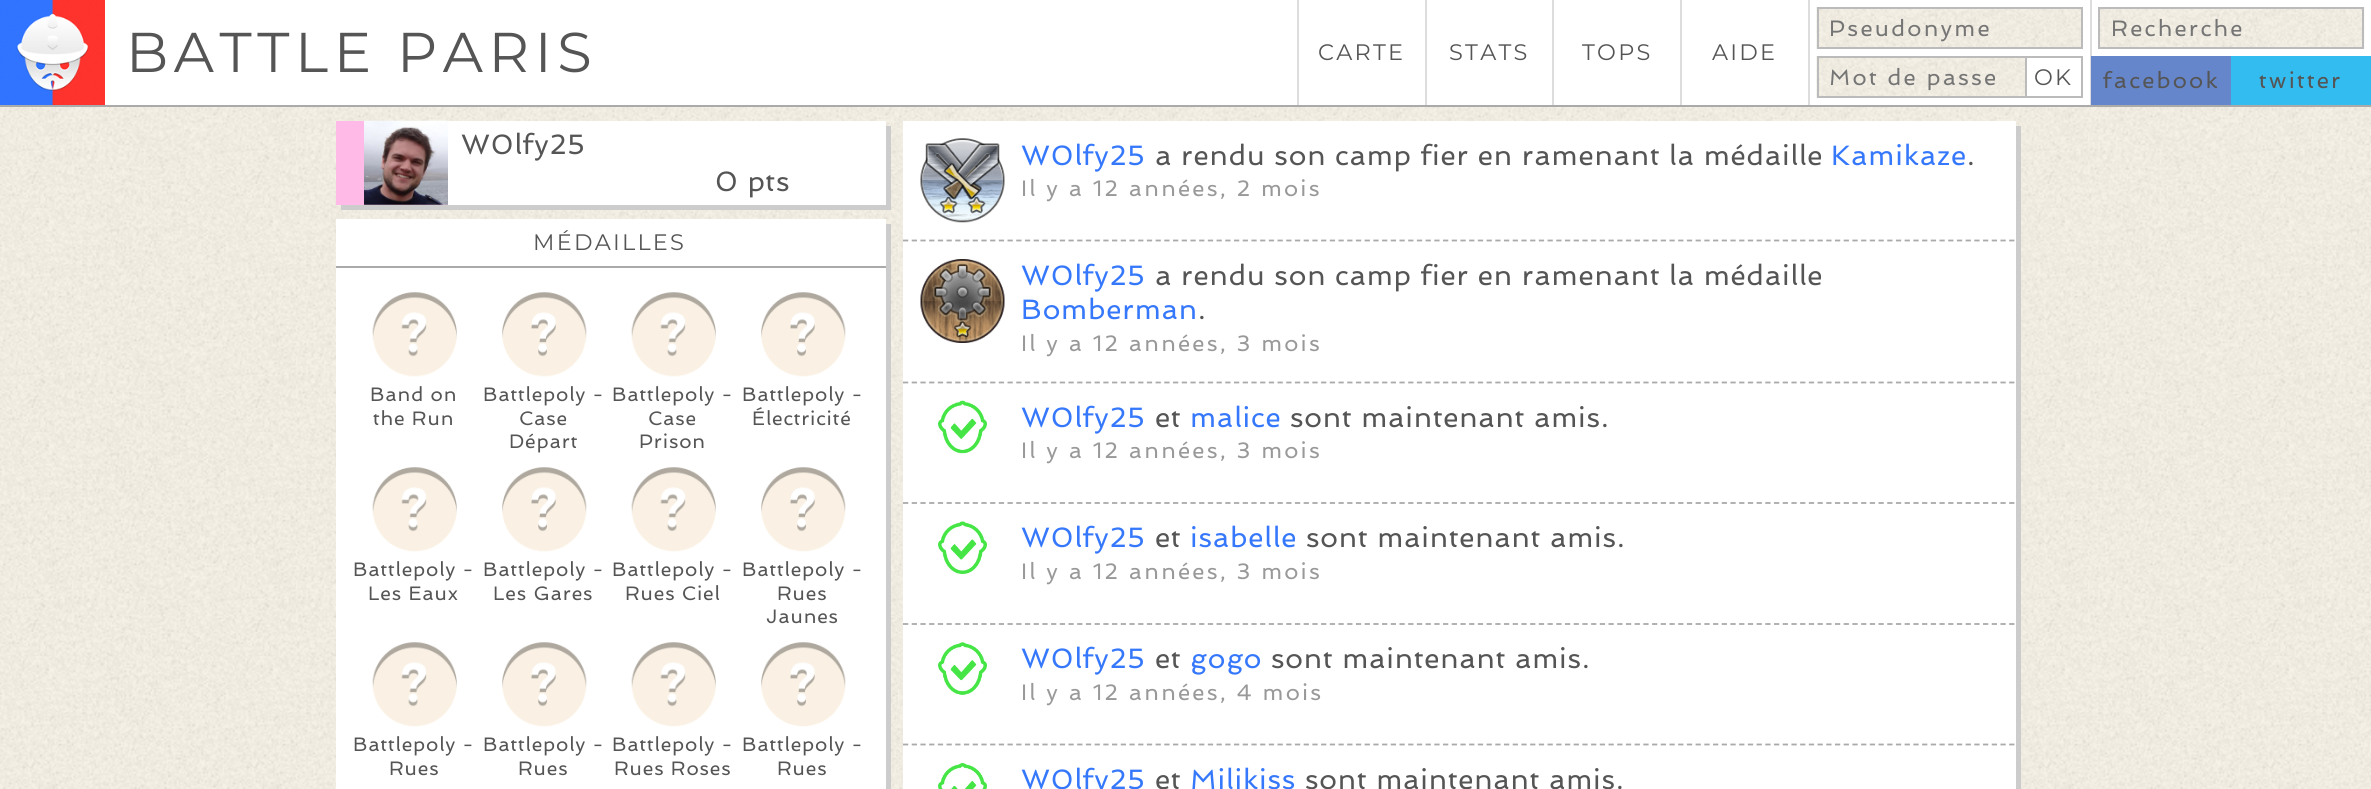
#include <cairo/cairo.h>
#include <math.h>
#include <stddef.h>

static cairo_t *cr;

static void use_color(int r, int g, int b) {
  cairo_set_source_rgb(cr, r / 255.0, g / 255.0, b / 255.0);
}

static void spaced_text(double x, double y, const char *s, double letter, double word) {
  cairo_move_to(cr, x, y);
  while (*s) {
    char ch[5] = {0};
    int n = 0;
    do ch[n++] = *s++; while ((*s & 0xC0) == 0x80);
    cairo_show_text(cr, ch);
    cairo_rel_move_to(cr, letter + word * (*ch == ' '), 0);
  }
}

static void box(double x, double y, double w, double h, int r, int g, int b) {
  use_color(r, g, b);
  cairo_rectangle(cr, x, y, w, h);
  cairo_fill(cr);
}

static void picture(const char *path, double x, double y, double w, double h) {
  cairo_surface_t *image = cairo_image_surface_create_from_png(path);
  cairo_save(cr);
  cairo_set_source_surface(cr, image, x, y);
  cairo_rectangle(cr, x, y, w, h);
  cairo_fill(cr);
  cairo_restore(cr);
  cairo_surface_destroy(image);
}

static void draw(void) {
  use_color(255, 255, 255);
  cairo_paint(cr);
  picture("img_01.png", 0, 107, 2371, 682);
  box(0, 105, 2371, 2, 170, 170, 170);
  picture("img_02.png", 0, 0, 105, 105);
  box(1297, 0, 2, 105, 221, 221, 221);
  box(1425, 0, 2, 105, 221, 221, 221);
  box(1552, 0, 2, 105, 221, 221, 221);
  box(1680, 0, 2, 105, 221, 221, 221);
  box(1808, 0, 2, 105, 221, 221, 221);
  picture("img_03.png", 1816, 7, 265, 42);
  cairo_rectangle(cr, 1818, 8, 264, 40);
  use_color(187, 187, 187);
  cairo_stroke(cr);
  picture("img_04.png", 1816, 56, 209, 42);
  cairo_rectangle(cr, 1818, 57, 208, 40);
  cairo_stroke(cr);
  box(2027, 56, 56, 2, 187, 187, 187);
  box(2081, 56, 2, 42, 187, 187, 187);
  box(2027, 96, 56, 2, 187, 187, 187);
  box(2090, 0, 2, 105, 221, 221, 221);
  picture("img_05.png", 2100, 7, 265, 42);
  cairo_rectangle(cr, 2099, 8, 264, 40);
  use_color(187, 187, 187);
  cairo_stroke(cr);
  box(2091, 56, 140, 49, 102, 134, 204);
  box(2231, 56, 140, 49, 51, 188, 239);
  use_color(204, 204, 204);
  cairo_new_path(cr);
  cairo_move_to(cr, 341, 205);
  cairo_line_to(cr, 341, 210);
  cairo_line_to(cr, 891, 210);
  cairo_line_to(cr, 891, 126);
  cairo_line_to(cr, 886, 126);
  cairo_line_to(cr, 886, 205);
  cairo_close_path(cr);
  cairo_fill(cr);
  box(448, 121, 438, 84, 255, 255, 255);
  box(336, 121, 112, 84, 255, 186, 232);
  picture("img_06.png", 364, 120, 84, 85);
  use_color(204, 204, 204);
  cairo_new_path(cr);
  cairo_move_to(cr, 341, 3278);
  cairo_line_to(cr, 341, 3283);
  cairo_line_to(cr, 891, 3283);
  cairo_line_to(cr, 891, 224);
  cairo_line_to(cr, 886, 224);
  cairo_line_to(cr, 886, 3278);
  cairo_close_path(cr);
  cairo_fill(cr);
  box(336, 219, 550, 570, 255, 255, 255);
  box(336, 266, 550, 2, 170, 170, 170);
  picture("img_07.png", 372, 292, 85, 85);
  picture("img_08.png", 502, 292, 85, 85);
  picture("img_07.png", 631, 292, 85, 85);
  picture("img_08.png", 761, 292, 85, 85);
  picture("img_07.png", 372, 467, 85, 85);
  picture("img_08.png", 502, 467, 85, 85);
  picture("img_07.png", 631, 467, 85, 85);
  picture("img_08.png", 761, 467, 85, 85);
  picture("img_07.png", 372, 642, 85, 85);
  picture("img_08.png", 502, 642, 85, 85);
  picture("img_07.png", 631, 642, 85, 85);
  picture("img_08.png", 761, 642, 85, 85);
  use_color(204, 204, 204);
  cairo_new_path(cr);
  cairo_move_to(cr, 908, 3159);
  cairo_line_to(cr, 908, 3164);
  cairo_line_to(cr, 2021, 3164);
  cairo_line_to(cr, 2021, 126);
  cairo_line_to(cr, 2016, 126);
  cairo_line_to(cr, 2016, 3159);
  cairo_close_path(cr);
  cairo_fill(cr);
  box(903, 121, 1113, 668, 255, 255, 255);
  cairo_new_path(cr);
  cairo_move_to(cr, 903, 240.5);
  cairo_line_to(cr, 2016, 240.5);
  use_color(170, 170, 170);
  cairo_set_line_width(cr, 1.8);
  cairo_set_dash(cr, (double[]){5.25, 3.46}, 2, 0);
  cairo_stroke(cr);
  picture("img_09.png", 920, 138, 85, 85);
  cairo_new_path(cr);
  cairo_move_to(cr, 903, 382.5);
  cairo_line_to(cr, 2016, 382.5);
  cairo_stroke(cr);
  picture("img_10.png", 920, 259, 85, 84);
  cairo_new_path(cr);
  cairo_move_to(cr, 903, 503);
  cairo_line_to(cr, 2016, 503);
  cairo_stroke(cr);
  picture("img_11.png", 938, 400, 49, 54);
  cairo_new_path(cr);
  cairo_move_to(cr, 903, 624);
  cairo_line_to(cr, 2016, 624);
  cairo_stroke(cr);
  picture("img_12.png", 938, 521, 49, 53);
  cairo_new_path(cr);
  cairo_move_to(cr, 903, 744.5);
  cairo_line_to(cr, 2016, 744.5);
  cairo_stroke(cr);
  picture("img_13.png", 938, 642, 49, 53);
  picture("img_14.png", 938, 763, 49, 26);
  cairo_select_font_face(cr, "Montserrat Thin", CAIRO_FONT_SLANT_NORMAL, CAIRO_FONT_WEIGHT_NORMAL);
  cairo_set_font_size(cr, 56);
  use_color(85, 85, 85);
  spaced_text(126, 72, "BATTLE PARIS", 5.6, 0);
  cairo_set_font_size(cr, 22.4);
  spaced_text(1318, 60, "CARTE", 2.25, 0);
  spaced_text(1449, 60, "STATS", 2.25, 0);
  spaced_text(1582, 60, "TOPS", 2.25, 0);
  spaced_text(1712, 60, "AIDE", 2.25, 0);
  cairo_select_font_face(cr, "Spinnaker", CAIRO_FONT_SLANT_NORMAL, CAIRO_FONT_WEIGHT_NORMAL);
  use_color(117, 117, 117);
  spaced_text(1829, 36, "Pseudonyme", 2.25, 0);
  spaced_text(1829, 85, "Mot de passe", 2.25, 0);
  cairo_select_font_face(cr, "Montserrat Thin", CAIRO_FONT_SLANT_NORMAL, CAIRO_FONT_WEIGHT_NORMAL);
  use_color(85, 85, 85);
  spaced_text(2034, 85, "OK", 2.25, 0);
  cairo_select_font_face(cr, "Spinnaker", CAIRO_FONT_SLANT_NORMAL, CAIRO_FONT_WEIGHT_NORMAL);
  use_color(117, 117, 117);
  spaced_text(2111, 36, "Recherche", 2.25, 0);
  use_color(85, 85, 85);
  spaced_text(2103, 88, "facebook", 2.25, 0);
  spaced_text(2259, 88, "twitter", 2.25, 0);
  cairo_set_font_size(cr, 28);
  spaced_text(461, 154, "W0lfy25", 0.85, 0);
  spaced_text(715, 191, "0 pts", 0.85, 0);
  cairo_select_font_face(cr, "Montserrat Thin", CAIRO_FONT_SLANT_NORMAL, CAIRO_FONT_WEIGHT_NORMAL);
  cairo_set_font_size(cr, 22.4);
  spaced_text(533, 250, "MÉDAILLES", 2.25, 0);
  cairo_select_font_face(cr, "Spinnaker", CAIRO_FONT_SLANT_NORMAL, CAIRO_FONT_WEIGHT_NORMAL);
  cairo_set_font_size(cr, 19.5);
  spaced_text(370, 401, "Band on", 0.85, 0);
  spaced_text(373, 425, "the Run", 0.85, 0);
  spaced_text(483, 401, "Battlepoly -", 0.85, 0);
  spaced_text(519, 425, "Case", 0.85, 0);
  spaced_text(509, 448, "Départ", 0.85, 0);
  spaced_text(612, 401, "Battlepoly -", 0.85, 0);
  spaced_text(648, 425, "Case", 0.85, 0);
  spaced_text(639, 448, "Prison", 0.85, 0);
  spaced_text(742, 401, "Battlepoly -", 0.85, 0);
  spaced_text(752, 425, "Électricité", 0.85, 0);
  spaced_text(353, 576, "Battlepoly -", 0.85, 0);
  spaced_text(368, 600, "Les Eaux", 0.85, 0);
  spaced_text(483, 576, "Battlepoly -", 0.85, 0);
  spaced_text(493, 600, "Les Gares", 0.85, 0);
  spaced_text(612, 576, "Battlepoly -", 0.85, 0);
  spaced_text(625, 600, "Rues Ciel", 0.85, 0);
  spaced_text(742, 576, "Battlepoly -", 0.85, 0);
  spaced_text(777, 600, "Rues", 0.85, 0);
  spaced_text(766, 623, "Jaunes", 0.85, 0);
  spaced_text(353, 751, "Battlepoly -", 0.85, 0);
  spaced_text(389, 775, "Rues", 0.85, 0);
  spaced_text(483, 751, "Battlepoly -", 0.85, 0);
  spaced_text(518, 775, "Rues", 0.85, 0);
  spaced_text(612, 751, "Battlepoly -", 0.85, 0);
  spaced_text(614, 775, "Rues Roses", 0.85, 0);
  spaced_text(742, 751, "Battlepoly -", 0.85, 0);
  spaced_text(777, 775, "Rues", 0.85, 0);
  cairo_set_font_size(cr, 28);
  use_color(54, 120, 252);
  spaced_text(1021, 165, "W0lfy25", 0.85, 0);
  use_color(85, 85, 85);
  spaced_text(1155, 165, "a rendu son camp fier en ramenant la médaille", 0.85, 0);
  use_color(54, 120, 252);
  spaced_text(1831, 165, "Kamikaze", 0.85, 0);
  use_color(85, 85, 85);
  spaced_text(1967, 165, ".", 0.85, 0);
  cairo_set_font_size(cr, 22.4);
  use_color(153, 153, 153);
  spaced_text(1021, 196, "Il y a 12 années, 2 mois", 2.25, 0);
  cairo_set_font_size(cr, 28);
  use_color(54, 120, 252);
  spaced_text(1021, 285, "W0lfy25", 0.85, 0);
  use_color(85, 85, 85);
  spaced_text(1155, 285, "a rendu son camp fier en ramenant la médaille", 0.85, 0);
  use_color(54, 120, 252);
  spaced_text(1021, 319, "Bomberman", 0.85, 0);
  use_color(85, 85, 85);
  spaced_text(1198, 319, ".", 0.85, 0);
  cairo_set_font_size(cr, 22.4);
  use_color(153, 153, 153);
  spaced_text(1021, 351, "Il y a 12 années, 3 mois", 2.25, 0);
  cairo_set_font_size(cr, 28);
  use_color(54, 120, 252);
  spaced_text(1021, 427, "W0lfy25", 0.85, 0);
  use_color(85, 85, 85);
  spaced_text(1155, 427, "et", 0.85, 0);
  use_color(54, 120, 252);
  spaced_text(1190, 427, "malice", 0.85, 0);
  use_color(85, 85, 85);
  spaced_text(1290, 427, "sont maintenant amis.", 0.85, 0);
  cairo_set_font_size(cr, 22.4);
  use_color(153, 153, 153);
  spaced_text(1021, 458, "Il y a 12 années, 3 mois", 2.25, 0);
  cairo_set_font_size(cr, 28);
  use_color(54, 120, 252);
  spaced_text(1021, 547, "W0lfy25", 0.85, 0);
  use_color(85, 85, 85);
  spaced_text(1155, 547, "et", 0.85, 0);
  use_color(54, 120, 252);
  spaced_text(1190, 547, "isabelle", 0.85, 0);
  use_color(85, 85, 85);
  spaced_text(1306, 547, "sont maintenant amis.", 0.85, 0);
  cairo_set_font_size(cr, 22.4);
  use_color(153, 153, 153);
  spaced_text(1021, 579, "Il y a 12 années, 3 mois", 2.25, 0);
  cairo_set_font_size(cr, 28);
  use_color(54, 120, 252);
  spaced_text(1021, 668, "W0lfy25", 0.85, 0);
  use_color(85, 85, 85);
  spaced_text(1155, 668, "et", 0.85, 0);
  use_color(54, 120, 252);
  spaced_text(1190, 668, "gogo", 0.85, 0);
  use_color(85, 85, 85);
  spaced_text(1271, 668, "sont maintenant amis.", 0.85, 0);
  cairo_set_font_size(cr, 22.4);
  use_color(153, 153, 153);
  spaced_text(1021, 700, "Il y a 12 années, 4 mois", 2.25, 0);
  cairo_set_font_size(cr, 28);
  use_color(54, 120, 252);
  spaced_text(1021, 789, "W0lfy25", 0.85, 0);
  use_color(85, 85, 85);
  spaced_text(1155, 789, "et", 0.85, 0);
  use_color(54, 120, 252);
  spaced_text(1190, 789, "Milikiss", 0.85, 0);
  use_color(85, 85, 85);
  spaced_text(1305, 789, "sont maintenant amis.", 0.85, 0);
}

int main(void) {
  cairo_surface_t *surface = cairo_image_surface_create(CAIRO_FORMAT_RGB24, 2371, 789);
  cr = cairo_create(surface);
  cairo_font_options_t *options = cairo_font_options_create();
  cairo_font_options_set_hint_metrics(options, CAIRO_HINT_METRICS_OFF);
  cairo_font_options_set_hint_style(options, CAIRO_HINT_STYLE_NONE);
  cairo_set_font_options(cr, options);
  cairo_set_miter_limit(cr, 4);
  draw();
  cairo_surface_write_to_png(surface, "out.png");
  cairo_font_options_destroy(options);
  cairo_destroy(cr);
  cairo_surface_destroy(surface);
  return 0;
}
